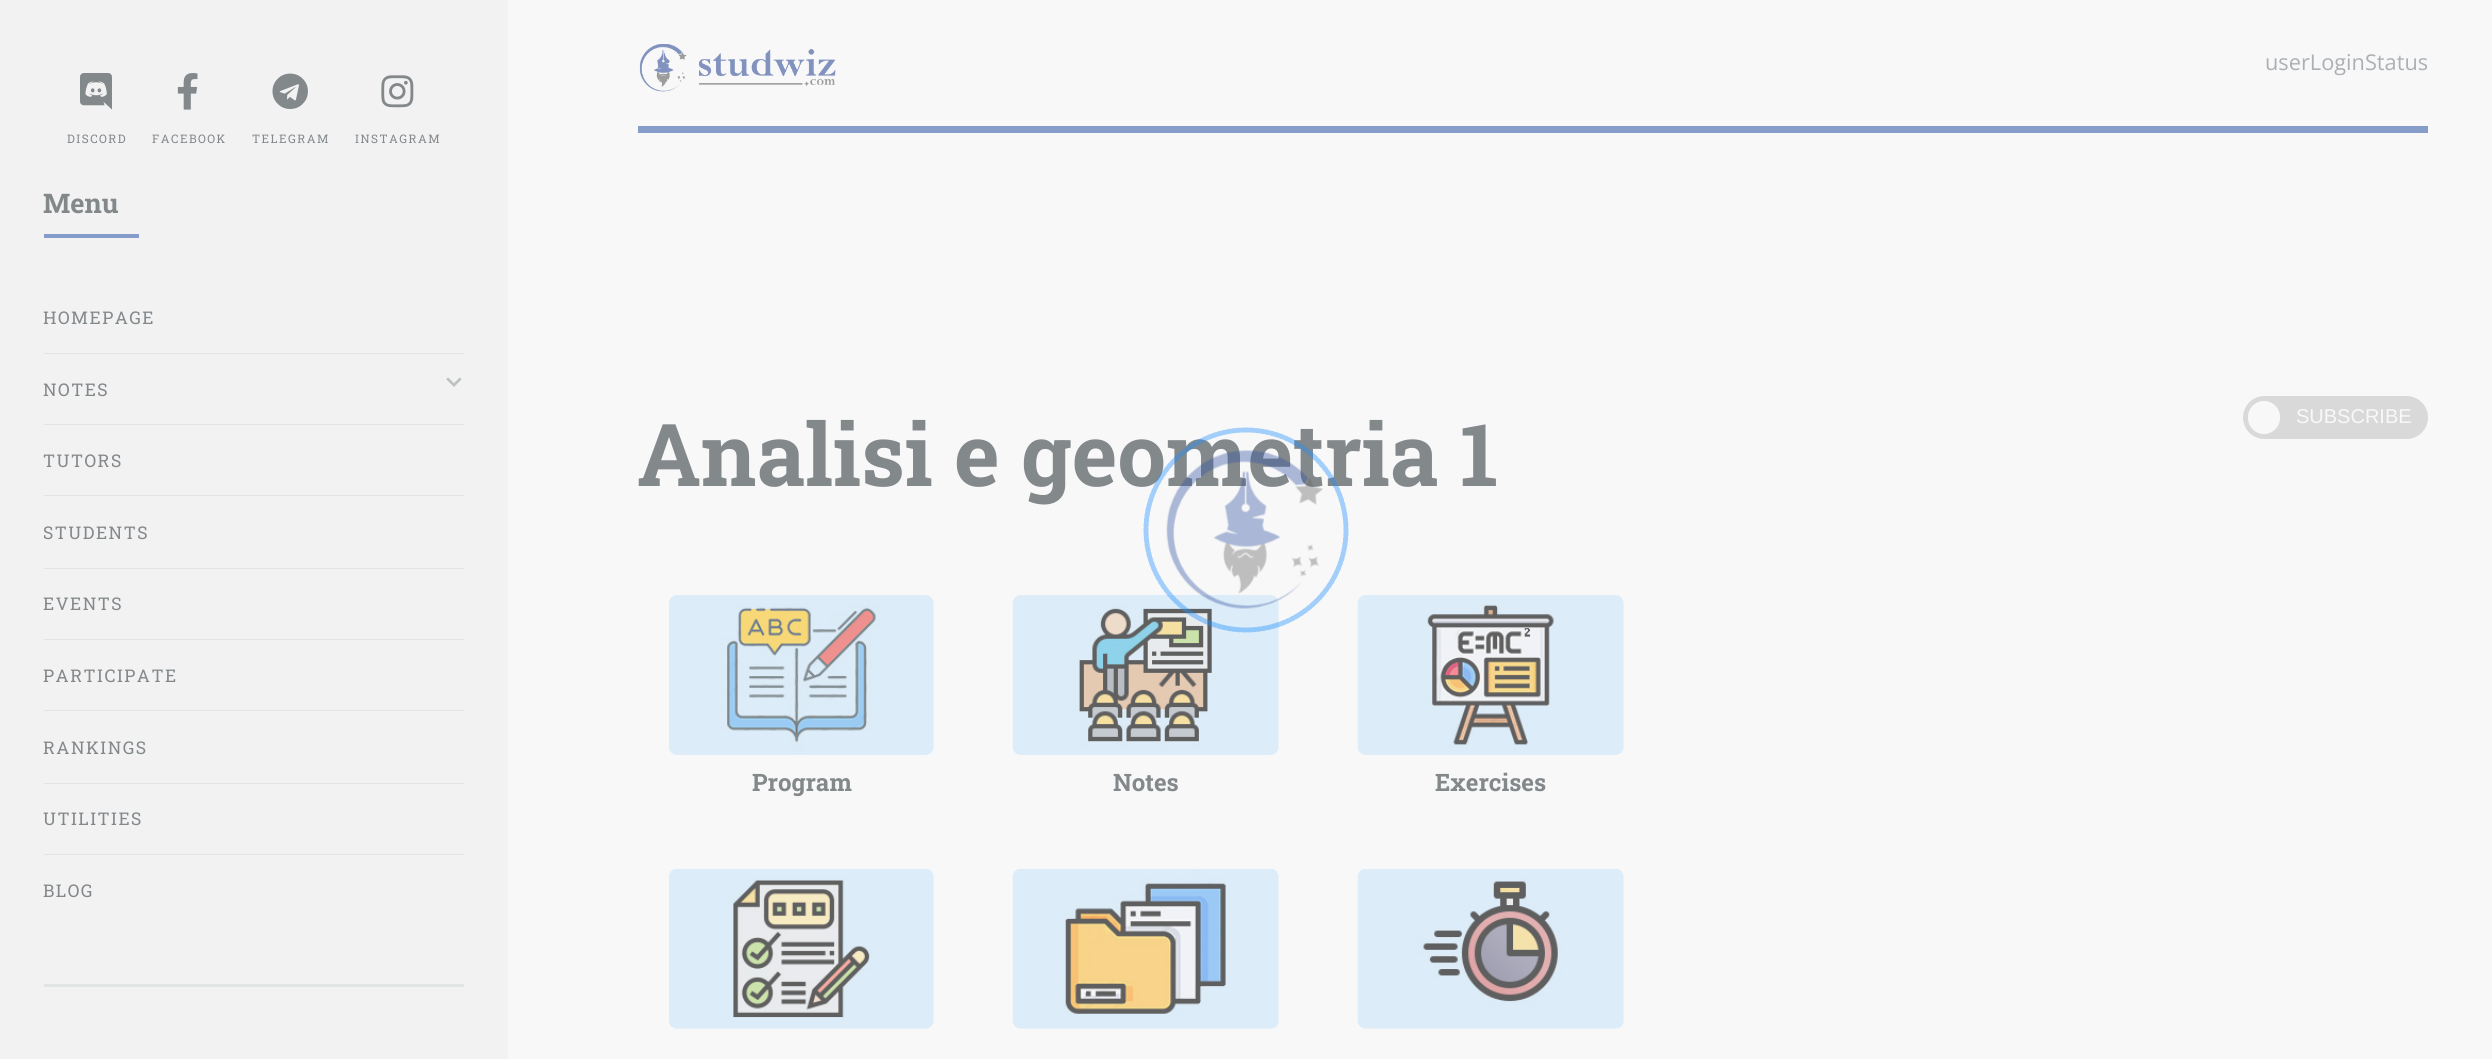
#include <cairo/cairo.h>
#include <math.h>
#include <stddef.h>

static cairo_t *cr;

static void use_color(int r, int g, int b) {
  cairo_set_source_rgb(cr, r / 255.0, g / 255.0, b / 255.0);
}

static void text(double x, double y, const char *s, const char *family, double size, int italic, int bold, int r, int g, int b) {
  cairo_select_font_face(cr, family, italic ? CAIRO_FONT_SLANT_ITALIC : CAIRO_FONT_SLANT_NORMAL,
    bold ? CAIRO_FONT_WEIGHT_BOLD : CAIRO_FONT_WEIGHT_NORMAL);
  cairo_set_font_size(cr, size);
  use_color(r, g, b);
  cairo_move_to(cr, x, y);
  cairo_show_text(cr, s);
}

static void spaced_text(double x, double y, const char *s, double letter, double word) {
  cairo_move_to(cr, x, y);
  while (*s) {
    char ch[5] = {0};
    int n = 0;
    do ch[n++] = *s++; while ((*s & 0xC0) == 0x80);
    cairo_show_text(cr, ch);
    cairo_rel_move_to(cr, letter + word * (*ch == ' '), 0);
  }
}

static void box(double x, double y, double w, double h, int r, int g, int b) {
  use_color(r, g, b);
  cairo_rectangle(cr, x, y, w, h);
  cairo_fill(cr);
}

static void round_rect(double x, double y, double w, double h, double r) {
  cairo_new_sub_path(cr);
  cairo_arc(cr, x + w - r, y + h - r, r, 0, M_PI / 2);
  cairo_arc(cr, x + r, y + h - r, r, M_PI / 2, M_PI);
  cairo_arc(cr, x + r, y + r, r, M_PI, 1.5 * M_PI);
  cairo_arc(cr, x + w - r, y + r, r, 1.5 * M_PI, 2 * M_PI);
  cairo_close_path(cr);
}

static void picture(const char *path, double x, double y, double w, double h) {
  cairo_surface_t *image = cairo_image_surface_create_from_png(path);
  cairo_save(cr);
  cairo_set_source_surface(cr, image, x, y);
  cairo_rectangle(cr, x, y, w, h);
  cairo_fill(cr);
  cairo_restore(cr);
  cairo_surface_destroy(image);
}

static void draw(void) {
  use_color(248, 248, 248);
  cairo_paint(cr);
  box(0, 0, 508, 1059, 242, 242, 243);
  box(44, 984, 420, 3, 226, 229, 230);
  picture("img_01.png", 80, 73, 32, 37);
  picture("img_02.png", 177, 73, 21, 37);
  picture("img_03.png", 272, 73, 36, 36);
  picture("img_04.png", 381, 75, 33, 33);
  box(44, 234, 95, 4, 134, 156, 202);
  box(44, 353, 420, 1, 226, 229, 230);
  picture("img_05.png", 446, 377, 16, 10);
  box(44, 424, 420, 1, 226, 229, 230);
  box(44, 495, 420, 1, 226, 229, 230);
  box(44, 568, 420, 1, 226, 229, 230);
  box(44, 639, 420, 1, 226, 229, 230);
  box(44, 710, 420, 1, 226, 229, 230);
  box(44, 783, 420, 1, 226, 229, 230);
  box(44, 854, 420, 1, 226, 229, 230);
  box(638, 126, 1790, 7, 134, 156, 202);
  picture("img_06.png", 639, 44, 197, 48);
  use_color(217, 217, 217);
  round_rect(2243, 396, 185, 43, 21.5);
  cairo_fill(cr);
  use_color(248, 248, 248);
  round_rect(2248, 401, 32, 33, 16);
  cairo_fill(cr);
  picture("img_07.png", 669, 595, 265, 160);
  picture("img_08.png", 1012, 595, 267, 160);
  picture("img_09.png", 1357, 595, 267, 160);
  picture("img_10.png", 669, 869, 265, 160);
  picture("img_11.png", 1012, 869, 267, 160);
  picture("img_12.png", 1357, 869, 267, 160);
  cairo_select_font_face(cr, "Roboto Slab", CAIRO_FONT_SLANT_NORMAL, CAIRO_FONT_WEIGHT_NORMAL);
  cairo_set_font_size(cr, 11.75);
  use_color(131, 136, 139);
  spaced_text(67, 143, "DISCORD", 1.5, 0);
  spaced_text(152, 143, "FACEBOOK", 1.5, 0);
  spaced_text(252, 143, "TELEGRAM", 1.5, 0);
  spaced_text(355, 143, "INSTAGRAM", 1.5, 0);
  text(43, 213, "Menu", "Roboto Slab", 27, 0, 1, 131, 136, 139);
  cairo_select_font_face(cr, "Roboto Slab", CAIRO_FONT_SLANT_NORMAL, CAIRO_FONT_WEIGHT_NORMAL);
  cairo_set_font_size(cr, 17.5);
  spaced_text(43, 324, "HOMEPAGE", 1.5, 0);
  spaced_text(43, 396, "NOTES", 1.5, 0);
  spaced_text(43, 467, "TUTORS", 1.5, 0);
  spaced_text(43, 539, "STUDENTS", 1.5, 0);
  spaced_text(43, 610, "EVENTS", 1.5, 0);
  spaced_text(43, 682, "PARTICIPATE", 1.5, 0);
  spaced_text(43, 754, "RANKINGS", 1.5, 0);
  spaced_text(43, 825, "UTILITIES", 1.5, 0);
  spaced_text(43, 897, "BLOG", 1.5, 0);
  text(2265, 70, "userLoginStatus", "Open Sans", 21.75, 0, 0, 171, 176, 181);
  text(2296, 423, "SUBSCRIBE", "Liberation Sans", 20, 0, 0, 248, 248, 248);
  text(637, 486, "Analisi e geometria 1", "Roboto Slab", 86.75, 0, 1, 131, 136, 139);
  text(752, 791, "Program", "Roboto Slab", 24, 0, 1, 131, 136, 139);
  text(1113, 791, "Notes", "Roboto Slab", 24, 0, 1, 131, 136, 139);
  text(1435, 791, "Exercises", "Roboto Slab", 24, 0, 1, 131, 136, 139);
  cairo_new_path(cr);
  cairo_move_to(cr, 1246, 430);
  cairo_curve_to(cr, 1301.5, 430, 1346, 475, 1346, 530);
  cairo_curve_to(cr, 1346, 585, 1301.5, 630, 1246, 630);
  cairo_curve_to(cr, 1191, 630, 1146, 585, 1146, 530);
  cairo_curve_to(cr, 1146, 475, 1191, 430, 1246, 430);
  cairo_close_path(cr);
  cairo_set_source_rgba(cr, 0.118, 0.565, 1, 0.4);
  cairo_set_line_width(cr, 5);
  cairo_set_line_cap(cr, CAIRO_LINE_CAP_ROUND);
  cairo_set_dash(cr, (double[]){2.5, 2.5}, 2, 0);
  cairo_stroke(cr);
  picture("img_13.png", 1166, 450, 157, 159);
}

int main(void) {
  cairo_surface_t *surface = cairo_image_surface_create(CAIRO_FORMAT_RGB24, 2492, 1059);
  cr = cairo_create(surface);
  cairo_font_options_t *options = cairo_font_options_create();
  cairo_font_options_set_hint_metrics(options, CAIRO_HINT_METRICS_OFF);
  cairo_font_options_set_hint_style(options, CAIRO_HINT_STYLE_NONE);
  cairo_set_font_options(cr, options);
  cairo_set_miter_limit(cr, 4);
  draw();
  cairo_surface_write_to_png(surface, "out.png");
  cairo_font_options_destroy(options);
  cairo_destroy(cr);
  cairo_surface_destroy(surface);
  return 0;
}
